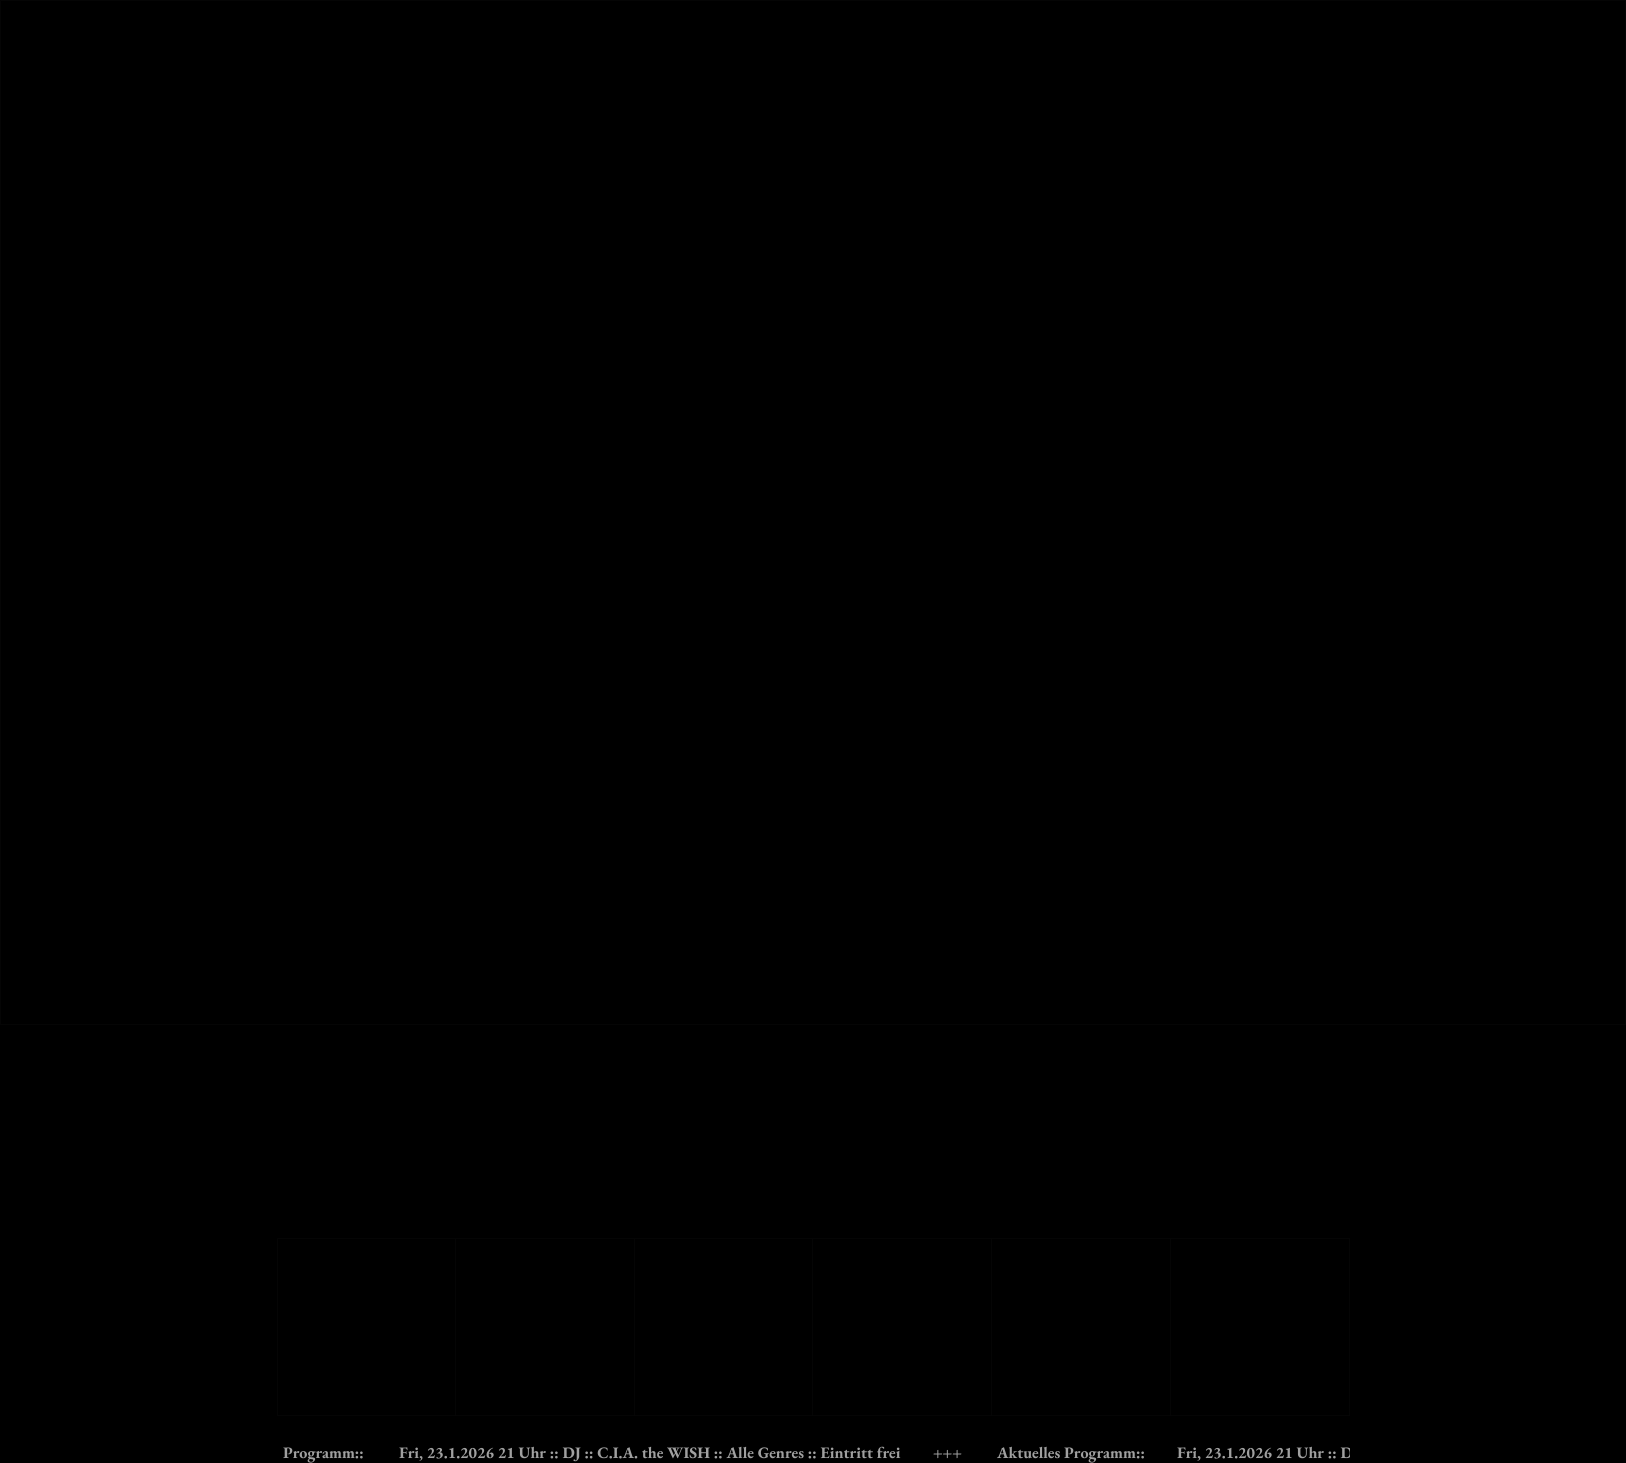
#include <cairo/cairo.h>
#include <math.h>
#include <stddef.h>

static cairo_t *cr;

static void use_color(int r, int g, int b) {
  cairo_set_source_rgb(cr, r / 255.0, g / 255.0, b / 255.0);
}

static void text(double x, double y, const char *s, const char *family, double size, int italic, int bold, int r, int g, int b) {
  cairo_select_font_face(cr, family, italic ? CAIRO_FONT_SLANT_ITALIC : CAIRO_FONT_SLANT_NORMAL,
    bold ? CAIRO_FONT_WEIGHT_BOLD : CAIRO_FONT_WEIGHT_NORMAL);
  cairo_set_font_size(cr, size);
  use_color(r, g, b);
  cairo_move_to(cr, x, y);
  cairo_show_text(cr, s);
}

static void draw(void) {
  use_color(0, 0, 0);
  cairo_paint(cr);
  use_color(5, 5, 5);
  cairo_new_path(cr);
  cairo_move_to(cr, 0, 0);
  cairo_line_to(cr, 1626, 0);
  cairo_line_to(cr, 1626, 1);
  cairo_line_to(cr, 1, 1);
  cairo_close_path(cr);
  cairo_fill(cr);
  cairo_new_path(cr);
  cairo_move_to(cr, 0, 1025);
  cairo_line_to(cr, 0, 0);
  cairo_line_to(cr, 1, 1);
  cairo_line_to(cr, 1, 1025);
  cairo_close_path(cr);
  cairo_fill(cr);
  cairo_new_path(cr);
  cairo_move_to(cr, 1626, 1);
  cairo_line_to(cr, 1626, 1025);
  cairo_line_to(cr, 1625, 1024);
  cairo_line_to(cr, 1625, 1);
  cairo_close_path(cr);
  cairo_fill(cr);
  cairo_set_source_rgba(cr, 0.2, 0.2, 0.2, 0.1);
  cairo_new_path(cr);
  cairo_move_to(cr, 1626, 1025);
  cairo_line_to(cr, 1, 1025);
  cairo_line_to(cr, 1, 1024);
  cairo_line_to(cr, 1625, 1024);
  cairo_close_path(cr);
  cairo_fill(cr);
  use_color(5, 5, 5);
  cairo_new_path(cr);
  cairo_move_to(cr, 277, 1238);
  cairo_line_to(cr, 1350, 1238);
  cairo_line_to(cr, 1350, 1239);
  cairo_line_to(cr, 278, 1239);
  cairo_close_path(cr);
  cairo_fill(cr);
  cairo_new_path(cr);
  cairo_move_to(cr, 277, 1416);
  cairo_line_to(cr, 277, 1238);
  cairo_line_to(cr, 278, 1239);
  cairo_line_to(cr, 278, 1416);
  cairo_close_path(cr);
  cairo_fill(cr);
  cairo_new_path(cr);
  cairo_move_to(cr, 456, 1239);
  cairo_line_to(cr, 456, 1416);
  cairo_line_to(cr, 455, 1415);
  cairo_line_to(cr, 455, 1239);
  cairo_close_path(cr);
  cairo_fill(cr);
  cairo_set_source_rgba(cr, 0.2, 0.2, 0.2, 0.1);
  cairo_new_path(cr);
  cairo_move_to(cr, 456, 1416);
  cairo_line_to(cr, 278, 1416);
  cairo_line_to(cr, 278, 1415);
  cairo_line_to(cr, 455, 1415);
  cairo_close_path(cr);
  cairo_fill(cr);
  use_color(5, 5, 5);
  cairo_new_path(cr);
  cairo_move_to(cr, 635, 1239);
  cairo_line_to(cr, 635, 1416);
  cairo_line_to(cr, 634, 1415);
  cairo_line_to(cr, 634, 1239);
  cairo_close_path(cr);
  cairo_fill(cr);
  cairo_set_source_rgba(cr, 0.2, 0.2, 0.2, 0.1);
  cairo_new_path(cr);
  cairo_move_to(cr, 635, 1416);
  cairo_line_to(cr, 456, 1416);
  cairo_line_to(cr, 456, 1415);
  cairo_line_to(cr, 634, 1415);
  cairo_close_path(cr);
  cairo_fill(cr);
  use_color(5, 5, 5);
  cairo_new_path(cr);
  cairo_move_to(cr, 813, 1239);
  cairo_line_to(cr, 813, 1416);
  cairo_line_to(cr, 812, 1415);
  cairo_line_to(cr, 812, 1239);
  cairo_close_path(cr);
  cairo_fill(cr);
  cairo_set_source_rgba(cr, 0.2, 0.2, 0.2, 0.1);
  cairo_new_path(cr);
  cairo_move_to(cr, 813, 1416);
  cairo_line_to(cr, 635, 1416);
  cairo_line_to(cr, 635, 1415);
  cairo_line_to(cr, 812, 1415);
  cairo_close_path(cr);
  cairo_fill(cr);
  use_color(5, 5, 5);
  cairo_new_path(cr);
  cairo_move_to(cr, 992, 1239);
  cairo_line_to(cr, 992, 1416);
  cairo_line_to(cr, 991, 1415);
  cairo_line_to(cr, 991, 1239);
  cairo_close_path(cr);
  cairo_fill(cr);
  cairo_set_source_rgba(cr, 0.2, 0.2, 0.2, 0.1);
  cairo_new_path(cr);
  cairo_move_to(cr, 992, 1416);
  cairo_line_to(cr, 813, 1416);
  cairo_line_to(cr, 813, 1415);
  cairo_line_to(cr, 991, 1415);
  cairo_close_path(cr);
  cairo_fill(cr);
  use_color(5, 5, 5);
  cairo_new_path(cr);
  cairo_move_to(cr, 1171, 1239);
  cairo_line_to(cr, 1171, 1416);
  cairo_line_to(cr, 1170, 1415);
  cairo_line_to(cr, 1170, 1239);
  cairo_close_path(cr);
  cairo_fill(cr);
  cairo_set_source_rgba(cr, 0.2, 0.2, 0.2, 0.1);
  cairo_new_path(cr);
  cairo_move_to(cr, 1171, 1416);
  cairo_line_to(cr, 992, 1416);
  cairo_line_to(cr, 992, 1415);
  cairo_line_to(cr, 1170, 1415);
  cairo_close_path(cr);
  cairo_fill(cr);
  use_color(5, 5, 5);
  cairo_new_path(cr);
  cairo_move_to(cr, 1350, 1239);
  cairo_line_to(cr, 1350, 1416);
  cairo_line_to(cr, 1349, 1415);
  cairo_line_to(cr, 1349, 1239);
  cairo_close_path(cr);
  cairo_fill(cr);
  cairo_set_source_rgba(cr, 0.2, 0.2, 0.2, 0.1);
  cairo_new_path(cr);
  cairo_move_to(cr, 1350, 1416);
  cairo_line_to(cr, 1171, 1416);
  cairo_line_to(cr, 1171, 1415);
  cairo_line_to(cr, 1349, 1415);
  cairo_close_path(cr);
  cairo_fill(cr);
  text(283, 1458, "Programm::", "EB Garamond", 16, 0, 1, 160, 160, 160);
  text(399, 1458, "Fri, 23.1.2026 21 Uhr :: DJ :: C.I.A. the WISH :: Alle Genres :: Eintritt frei", "EB Garamond", 16, 0, 1, 160, 160, 160);
  text(933, 1458, "+++", "EB Garamond", 16, 0, 1, 160, 160, 160);
  text(997, 1458, "Aktuelles Programm::", "EB Garamond", 16, 0, 1, 160, 160, 160);
  cairo_save(cr);
  cairo_rectangle(cr, 277, 1442, 1073, 21);
  cairo_clip(cr);
  text(1177, 1458, "Fri, 23.1.2026 21 Uhr :: D", "EB Garamond", 16, 0, 1, 160, 160, 160);
  cairo_restore(cr);
}

int main(void) {
  cairo_surface_t *surface = cairo_image_surface_create(CAIRO_FORMAT_RGB24, 1626, 1463);
  cr = cairo_create(surface);
  cairo_font_options_t *options = cairo_font_options_create();
  cairo_font_options_set_hint_metrics(options, CAIRO_HINT_METRICS_OFF);
  cairo_font_options_set_hint_style(options, CAIRO_HINT_STYLE_NONE);
  cairo_set_font_options(cr, options);
  cairo_set_miter_limit(cr, 4);
  draw();
  cairo_surface_write_to_png(surface, "out.png");
  cairo_font_options_destroy(options);
  cairo_destroy(cr);
  cairo_surface_destroy(surface);
  return 0;
}
